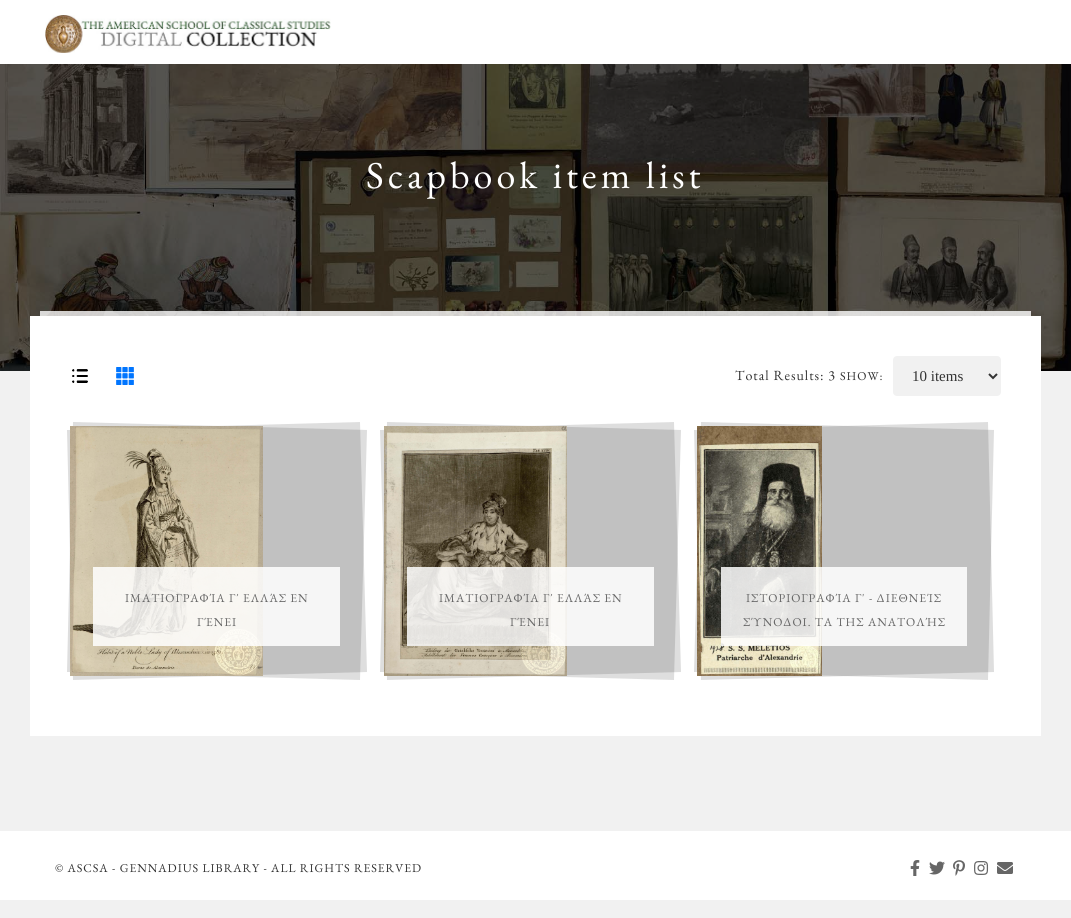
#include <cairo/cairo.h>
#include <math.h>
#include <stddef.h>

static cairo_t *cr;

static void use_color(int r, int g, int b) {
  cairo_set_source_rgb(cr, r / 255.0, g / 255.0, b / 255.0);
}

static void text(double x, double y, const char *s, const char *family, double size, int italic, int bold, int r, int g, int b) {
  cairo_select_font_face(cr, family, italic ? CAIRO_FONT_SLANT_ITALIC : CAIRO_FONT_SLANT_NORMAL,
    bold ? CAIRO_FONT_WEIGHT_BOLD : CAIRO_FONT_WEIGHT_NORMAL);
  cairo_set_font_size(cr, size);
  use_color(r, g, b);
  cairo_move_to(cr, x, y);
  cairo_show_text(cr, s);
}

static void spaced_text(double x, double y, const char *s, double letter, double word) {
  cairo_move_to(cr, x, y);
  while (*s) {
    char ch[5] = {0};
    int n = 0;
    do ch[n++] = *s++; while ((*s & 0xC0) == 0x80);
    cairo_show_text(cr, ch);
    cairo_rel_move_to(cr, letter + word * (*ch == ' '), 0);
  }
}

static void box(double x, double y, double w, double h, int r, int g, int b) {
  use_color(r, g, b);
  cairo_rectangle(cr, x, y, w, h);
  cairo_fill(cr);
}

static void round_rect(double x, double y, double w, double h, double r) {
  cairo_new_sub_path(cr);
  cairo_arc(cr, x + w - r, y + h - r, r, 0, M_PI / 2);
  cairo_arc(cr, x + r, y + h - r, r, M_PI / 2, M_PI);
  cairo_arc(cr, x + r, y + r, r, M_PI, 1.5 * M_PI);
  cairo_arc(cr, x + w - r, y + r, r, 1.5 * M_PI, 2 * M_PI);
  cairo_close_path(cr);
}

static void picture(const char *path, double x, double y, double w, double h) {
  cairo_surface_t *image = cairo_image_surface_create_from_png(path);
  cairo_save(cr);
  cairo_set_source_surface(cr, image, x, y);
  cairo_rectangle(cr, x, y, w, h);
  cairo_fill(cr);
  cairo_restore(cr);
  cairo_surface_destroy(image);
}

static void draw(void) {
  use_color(241, 241, 241);
  cairo_paint(cr);
  box(0, 0, 1071, 64, 255, 255, 255);
  picture("img_01.png", 45, 15, 286, 38);
  picture("img_02.png", 0, 64, 1071, 307);
  box(30, 316, 1011, 420, 255, 255, 255);
  cairo_set_source_rgba(cr, 1, 1, 1, 0.8);
  cairo_rectangle(cr, 40, 311, 991, 5);
  cairo_fill(cr);
  picture("img_03.png", 72, 369, 16, 14);
  picture("img_04.png", 116, 367, 18, 18);
  use_color(241, 241, 241);
  round_rect(893, 356, 108, 40, 4);
  cairo_fill(cr);
  cairo_new_path(cr);
  cairo_move_to(cr, 989, 374);
  cairo_line_to(cr, 993, 378);
  cairo_line_to(cr, 997, 374);
  use_color(51, 51, 51);
  cairo_stroke(cr);
  use_color(222, 222, 222);
  cairo_new_path(cr);
  cairo_move_to(cr, 73, 422);
  cairo_line_to(cr, 367, 430);
  cairo_line_to(cr, 360, 680);
  cairo_line_to(cr, 67, 672);
  cairo_close_path(cr);
  cairo_fill(cr);
  cairo_set_source_rgba(cr, 0, 0, 0, 0.13);
  cairo_new_path(cr);
  cairo_move_to(cr, 67, 430);
  cairo_line_to(cr, 360, 422);
  cairo_line_to(cr, 367, 672);
  cairo_line_to(cr, 73, 680);
  cairo_close_path(cr);
  cairo_fill(cr);
  picture("img_05.png", 70, 426, 193, 250);
  cairo_set_source_rgba(cr, 1, 1, 1, 0.85);
  cairo_rectangle(cr, 93, 567, 247, 79);
  cairo_fill(cr);
  use_color(222, 222, 222);
  cairo_new_path(cr);
  cairo_move_to(cr, 387, 422);
  cairo_line_to(cr, 681, 430);
  cairo_line_to(cr, 674, 680);
  cairo_line_to(cr, 380, 672);
  cairo_close_path(cr);
  cairo_fill(cr);
  cairo_set_source_rgba(cr, 0, 0, 0, 0.13);
  cairo_new_path(cr);
  cairo_move_to(cr, 380, 430);
  cairo_line_to(cr, 674, 422);
  cairo_line_to(cr, 681, 672);
  cairo_line_to(cr, 387, 680);
  cairo_close_path(cr);
  cairo_fill(cr);
  picture("img_06.png", 384, 426, 183, 250);
  cairo_set_source_rgba(cr, 1, 1, 1, 0.85);
  cairo_rectangle(cr, 407, 567, 247, 79);
  cairo_fill(cr);
  use_color(222, 222, 222);
  cairo_new_path(cr);
  cairo_move_to(cr, 701, 422);
  cairo_line_to(cr, 994, 430);
  cairo_line_to(cr, 988, 680);
  cairo_line_to(cr, 694, 672);
  cairo_close_path(cr);
  cairo_fill(cr);
  cairo_set_source_rgba(cr, 0, 0, 0, 0.13);
  cairo_new_path(cr);
  cairo_move_to(cr, 694, 430);
  cairo_line_to(cr, 988, 422);
  cairo_line_to(cr, 994, 672);
  cairo_line_to(cr, 701, 680);
  cairo_close_path(cr);
  cairo_fill(cr);
  picture("img_07.png", 697, 426, 125, 250);
  cairo_set_source_rgba(cr, 1, 1, 1, 0.85);
  cairo_rectangle(cr, 721, 567, 246, 79);
  cairo_fill(cr);
  box(0, 831, 1071, 69, 255, 255, 255);
  picture("img_08.png", 910, 860, 10, 16);
  picture("img_09.png", 929, 861, 16, 14);
  picture("img_10.png", 953, 860, 12, 16);
  picture("img_11.png", 974, 861, 15, 14);
  picture("img_12.png", 997, 862, 16, 12);
  cairo_select_font_face(cr, "EB Garamond", CAIRO_FONT_SLANT_NORMAL, CAIRO_FONT_WEIGHT_NORMAL);
  cairo_set_font_size(cr, 38);
  spaced_text(366, 188, "Scapbook item list", 4, 0);
  cairo_set_font_size(cr, 14);
  use_color(51, 51, 51);
  spaced_text(735, 380, "Total Results: 3", 1, 0);
  cairo_set_font_size(cr, 12);
  spaced_text(840, 380, "SHOW:", 1, 0);
  text(912, 381, "10 items", "Liberation Serif", 15, 0, 0, 51, 51, 51);
  cairo_select_font_face(cr, "EB Garamond", CAIRO_FONT_SLANT_NORMAL, CAIRO_FONT_WEIGHT_NORMAL);
  cairo_set_font_size(cr, 12);
  use_color(102, 102, 102);
  spaced_text(125, 602, "ΙΜΑΤΙΟΓΡΑΦΊΑ Γ΄ ΕΛΛΆΣ ΕΝ", 1, 0);
  spaced_text(197, 626, "ΓΈΝΕΙ", 1, 0);
  spaced_text(439, 602, "ΙΜΑΤΙΟΓΡΑΦΊΑ Γ΄ ΕΛΛΆΣ ΕΝ", 1, 0);
  spaced_text(510, 626, "ΓΈΝΕΙ", 1, 0);
  spaced_text(746, 602, "ΙΣΤΟΡΙΟΓΡΑΦΊΑ Γ' - ΔΙΕΘΝΕΊΣ", 1, 0);
  spaced_text(743, 626, "ΣΎΝΟΔΟΙ. ΤΑ ΤΗΣ ΑΝΑΤΟΛΉΣ", 1, 0);
  use_color(51, 51, 51);
  spaced_text(55, 872, "© ASCSA - GENNADIUS LIBRARY - ALL RIGHTS RESERVED", 1, 0);
}

int main(void) {
  cairo_surface_t *surface = cairo_image_surface_create(CAIRO_FORMAT_RGB24, 1071, 918);
  cr = cairo_create(surface);
  cairo_font_options_t *options = cairo_font_options_create();
  cairo_font_options_set_hint_metrics(options, CAIRO_HINT_METRICS_OFF);
  cairo_font_options_set_hint_style(options, CAIRO_HINT_STYLE_NONE);
  cairo_set_font_options(cr, options);
  cairo_set_miter_limit(cr, 4);
  draw();
  cairo_surface_write_to_png(surface, "out.png");
  cairo_font_options_destroy(options);
  cairo_destroy(cr);
  cairo_surface_destroy(surface);
  return 0;
}
